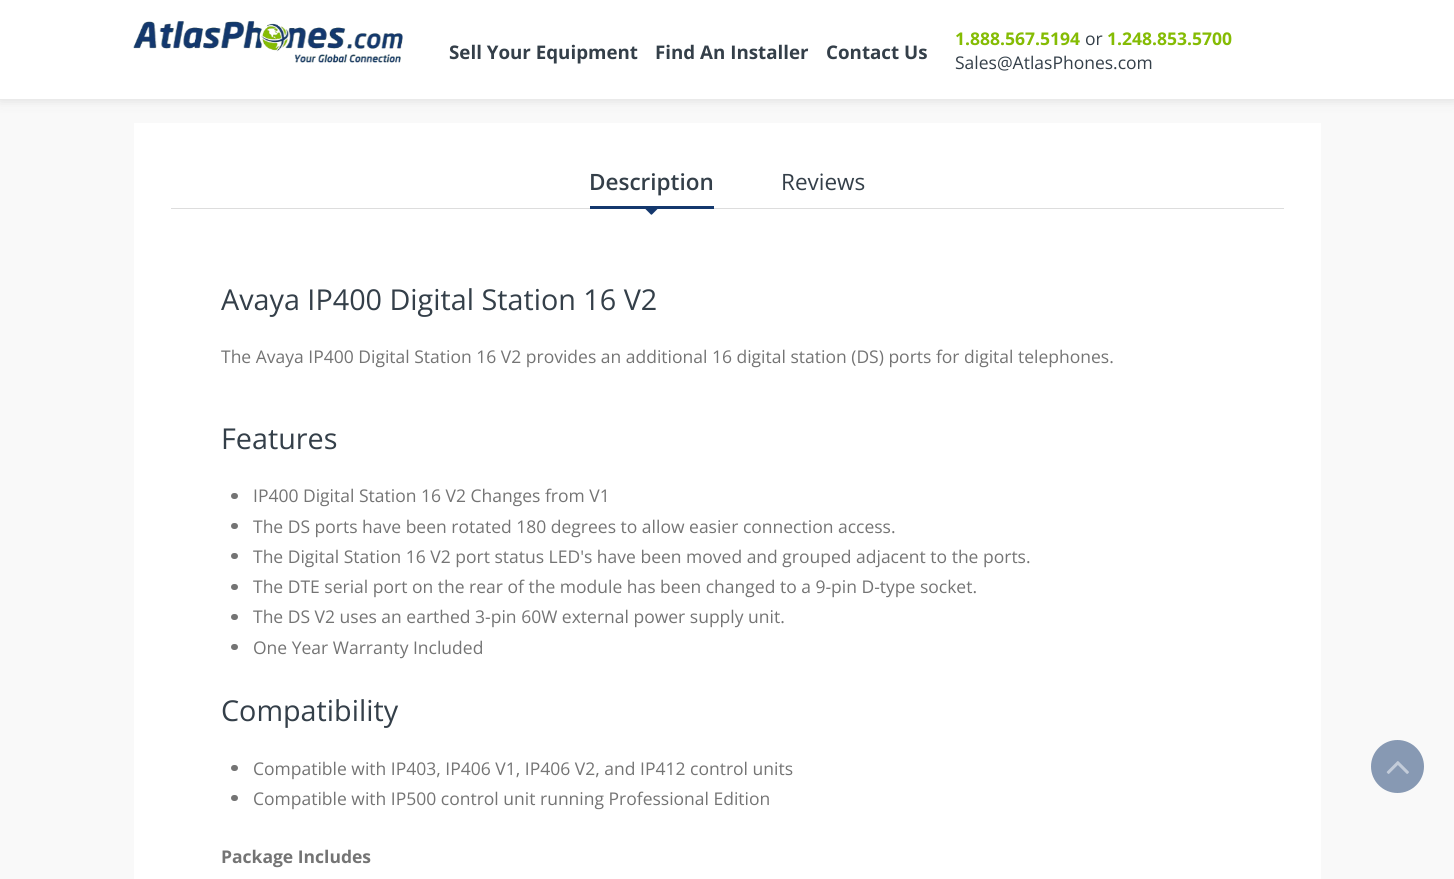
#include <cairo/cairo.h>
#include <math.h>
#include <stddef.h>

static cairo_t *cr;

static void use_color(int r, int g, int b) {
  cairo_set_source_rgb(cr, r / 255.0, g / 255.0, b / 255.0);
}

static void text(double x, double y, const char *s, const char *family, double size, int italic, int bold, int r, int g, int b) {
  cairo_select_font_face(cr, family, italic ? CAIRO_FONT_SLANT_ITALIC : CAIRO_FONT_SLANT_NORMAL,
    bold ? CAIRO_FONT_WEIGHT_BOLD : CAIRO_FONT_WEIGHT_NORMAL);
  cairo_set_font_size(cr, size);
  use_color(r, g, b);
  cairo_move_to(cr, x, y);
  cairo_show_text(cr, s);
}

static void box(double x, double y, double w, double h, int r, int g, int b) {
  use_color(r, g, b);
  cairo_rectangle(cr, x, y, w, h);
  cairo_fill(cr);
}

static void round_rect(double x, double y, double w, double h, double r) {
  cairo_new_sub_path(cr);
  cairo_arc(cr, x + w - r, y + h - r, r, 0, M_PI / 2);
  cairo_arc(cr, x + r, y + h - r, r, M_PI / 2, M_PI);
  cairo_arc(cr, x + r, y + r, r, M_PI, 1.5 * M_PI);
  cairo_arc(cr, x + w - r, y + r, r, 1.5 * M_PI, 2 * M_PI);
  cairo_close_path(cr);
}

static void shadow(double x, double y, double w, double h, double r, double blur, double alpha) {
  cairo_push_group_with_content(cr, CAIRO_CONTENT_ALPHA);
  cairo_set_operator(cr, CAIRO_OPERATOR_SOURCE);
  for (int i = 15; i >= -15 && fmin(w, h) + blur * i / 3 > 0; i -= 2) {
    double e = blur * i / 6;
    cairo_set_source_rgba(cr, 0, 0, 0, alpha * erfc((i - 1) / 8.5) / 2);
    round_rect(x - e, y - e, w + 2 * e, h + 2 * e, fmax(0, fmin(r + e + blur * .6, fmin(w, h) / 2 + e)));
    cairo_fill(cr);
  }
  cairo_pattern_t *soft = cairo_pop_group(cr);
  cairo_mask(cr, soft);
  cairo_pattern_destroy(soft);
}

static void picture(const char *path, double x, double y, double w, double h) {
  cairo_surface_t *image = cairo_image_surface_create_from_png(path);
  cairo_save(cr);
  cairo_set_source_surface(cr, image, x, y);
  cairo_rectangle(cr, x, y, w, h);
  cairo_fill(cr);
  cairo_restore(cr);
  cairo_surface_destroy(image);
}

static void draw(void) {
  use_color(249, 249, 249);
  cairo_paint(cr);
  use_color(221, 221, 221);
  shadow(0, 0, 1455, 100, 0, 6, 1);
  box(0, 0, 1454, 99, 255, 255, 255);
  box(0, 99, 1454, 1, 234, 234, 234);
  picture("img_01.png", 133, 21, 270, 42);
  box(134, 123, 1187, 756, 255, 255, 255);
  box(171, 208, 1113, 1, 221, 221, 221);
  box(590, 206, 124, 3, 20, 56, 109);
  picture("img_02.png", 645, 209, 13, 6);
  use_color(116, 116, 116);
  round_rect(231, 493, 7, 6, 3);
  cairo_fill(cr);
  round_rect(231, 523, 7, 6, 3);
  cairo_fill(cr);
  round_rect(231, 553, 7, 6, 3);
  cairo_fill(cr);
  round_rect(231, 584, 7, 6, 3);
  cairo_fill(cr);
  round_rect(231, 614, 7, 6, 3);
  cairo_fill(cr);
  round_rect(231, 644, 7, 6, 3);
  cairo_fill(cr);
  round_rect(231, 765, 7, 6, 3);
  cairo_fill(cr);
  round_rect(231, 795, 7, 6, 3);
  cairo_fill(cr);
  use_color(135, 153, 179);
  cairo_arc(cr, 1397.5, 766.5, 26.5, 0, 2 * M_PI);
  cairo_fill(cr);
  picture("img_03.png", 1386, 761, 23, 13);
  text(449, 59, "Sell Your Equipment", "Open Sans", 18.75, 0, 1, 52, 63, 73);
  text(655, 59, "Find An Installer", "Open Sans", 18.75, 0, 1, 52, 63, 73);
  text(826, 59, "Contact Us", "Open Sans", 18.75, 0, 1, 52, 63, 73);
  text(955, 45, "1.888.567.5194", "Open Sans", 17.5, 0, 1, 133, 188, 4);
  text(1085, 45, "or", "Open Sans", 17.5, 0, 0, 52, 63, 73);
  text(1107, 45, "1.248.853.5700", "Open Sans", 17.5, 0, 1, 133, 188, 4);
  text(955, 69, "Sales@AtlasPhones.com", "Open Sans", 17.5, 0, 0, 52, 63, 73);
  text(589, 190, "Description", "Open Sans SemiBold", 22.5, 0, 0, 52, 63, 73);
  text(781, 190, "Reviews", "Open Sans", 22.5, 0, 0, 52, 63, 73);
  text(221, 310, "Avaya IP400 Digital Station 16 V2", "Open Sans", 28.75, 0, 0, 52, 63, 73);
  text(221, 363, "The Avaya IP400 Digital Station 16 V2 provides an additional 16 digital station (DS) ports for digital telephones.", "Open Sans", 17.5, 0, 0, 116, 116, 116);
  text(221, 449, "Features", "Open Sans", 28.75, 0, 0, 52, 63, 73);
  text(253, 502, "IP400 Digital Station 16 V2 Changes from V1", "Open Sans", 17.5, 0, 0, 116, 116, 116);
  text(253, 533, "The DS ports have been rotated 180 degrees to allow easier connection access.", "Open Sans", 17.5, 0, 0, 116, 116, 116);
  text(253, 563, "The Digital Station 16 V2 port status LED's have been moved and grouped adjacent to the ports.", "Open Sans", 17.5, 0, 0, 116, 116, 116);
  text(253, 593, "The DTE serial port on the rear of the module has been changed to a 9-pin D-type socket.", "Open Sans", 17.5, 0, 0, 116, 116, 116);
  text(253, 623, "The DS V2 uses an earthed 3-pin 60W external power supply unit.", "Open Sans", 17.5, 0, 0, 116, 116, 116);
  text(253, 654, "One Year Warranty Included", "Open Sans", 17.5, 0, 0, 116, 116, 116);
  text(221, 721, "Compatibility", "Open Sans", 28.75, 0, 0, 52, 63, 73);
  text(253, 775, "Compatible with IP403, IP406 V1, IP406 V2, and IP412 control units", "Open Sans", 17.5, 0, 0, 116, 116, 116);
  text(253, 805, "Compatible with IP500 control unit running Professional Edition", "Open Sans", 17.5, 0, 0, 116, 116, 116);
  text(221, 863, "Package Includes", "Open Sans", 17.5, 0, 1, 116, 116, 116);
}

int main(void) {
  cairo_surface_t *surface = cairo_image_surface_create(CAIRO_FORMAT_RGB24, 1454, 879);
  cr = cairo_create(surface);
  cairo_font_options_t *options = cairo_font_options_create();
  cairo_font_options_set_hint_metrics(options, CAIRO_HINT_METRICS_OFF);
  cairo_font_options_set_hint_style(options, CAIRO_HINT_STYLE_NONE);
  cairo_set_font_options(cr, options);
  cairo_set_miter_limit(cr, 4);
  draw();
  cairo_surface_write_to_png(surface, "out.png");
  cairo_font_options_destroy(options);
  cairo_destroy(cr);
  cairo_surface_destroy(surface);
  return 0;
}
